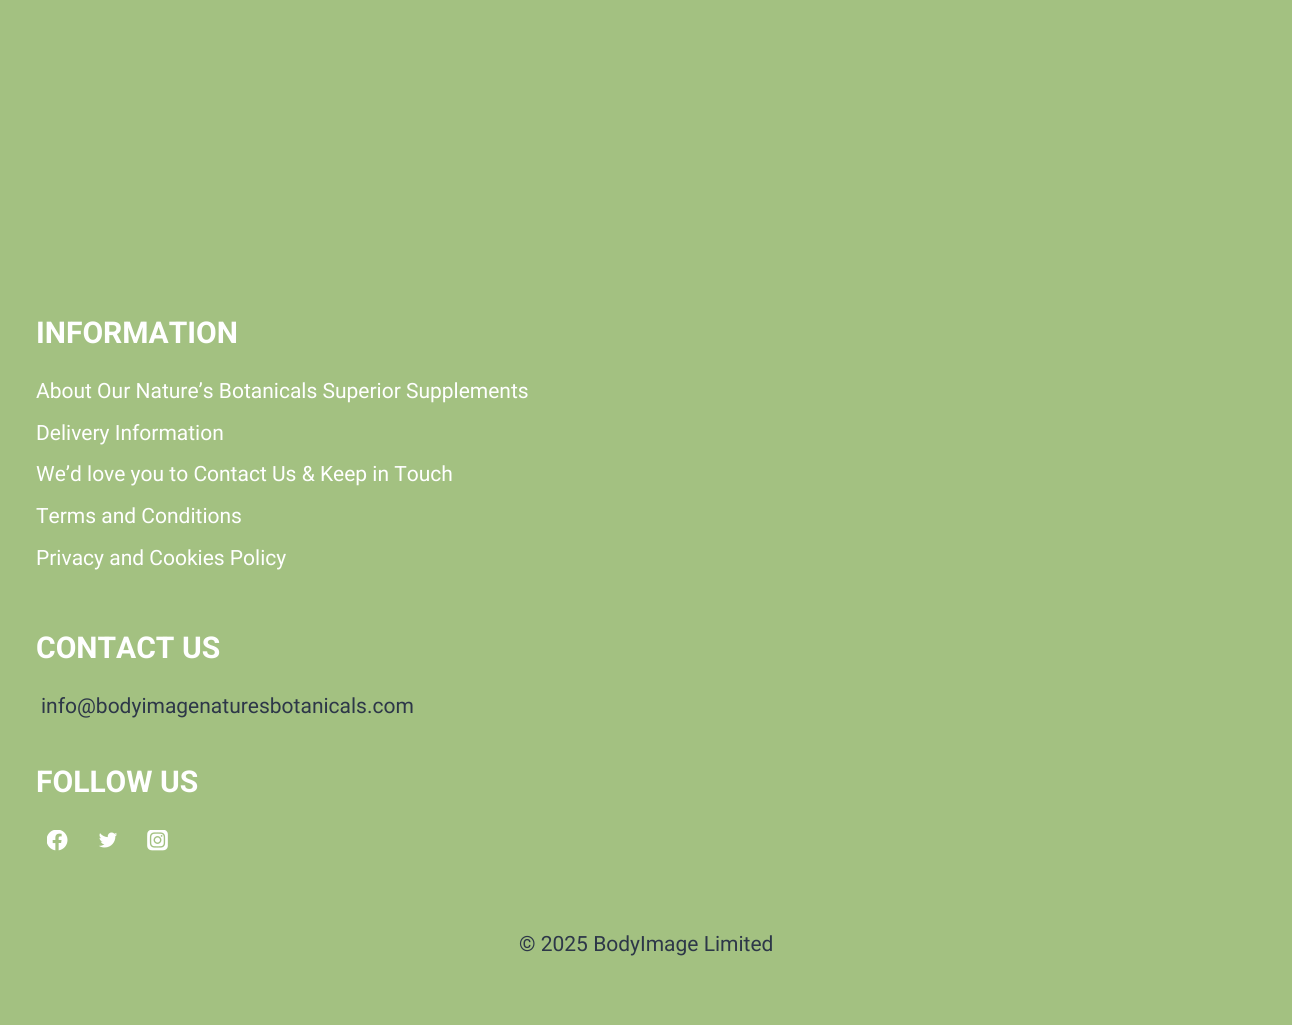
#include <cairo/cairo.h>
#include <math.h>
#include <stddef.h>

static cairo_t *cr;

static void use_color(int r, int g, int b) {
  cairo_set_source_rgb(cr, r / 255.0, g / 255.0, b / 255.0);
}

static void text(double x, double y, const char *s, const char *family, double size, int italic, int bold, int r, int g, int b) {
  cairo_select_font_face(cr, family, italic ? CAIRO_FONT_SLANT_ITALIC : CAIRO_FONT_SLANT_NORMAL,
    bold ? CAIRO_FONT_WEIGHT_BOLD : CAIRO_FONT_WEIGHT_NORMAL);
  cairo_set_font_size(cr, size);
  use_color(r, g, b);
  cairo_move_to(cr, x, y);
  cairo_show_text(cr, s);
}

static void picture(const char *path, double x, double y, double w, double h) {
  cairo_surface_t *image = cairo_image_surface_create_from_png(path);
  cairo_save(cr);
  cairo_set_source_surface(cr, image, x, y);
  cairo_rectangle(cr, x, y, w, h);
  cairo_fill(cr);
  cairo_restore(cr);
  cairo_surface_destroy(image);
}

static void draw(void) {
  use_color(163, 193, 129);
  cairo_paint(cr);
  picture("img_01.png", 47, 830, 21, 21);
  picture("img_02.png", 99, 832, 18, 16);
  picture("img_03.png", 147, 830, 21, 21);
  text(36, 343, "INFORMATION", "Roboto", 30, 0, 1, 255, 255, 255);
  text(36, 398, "About Our Nature’s Botanicals Superior Supplements", "Roboto", 21, 0, 0, 255, 255, 255);
  text(36, 440, "Delivery Information", "Roboto", 21, 0, 0, 255, 255, 255);
  text(36, 481, "We’d love you to Contact Us & Keep in Touch", "Roboto", 21, 0, 0, 255, 255, 255);
  text(36, 523, "Terms and Conditions", "Roboto", 21, 0, 0, 255, 255, 255);
  text(36, 565, "Privacy and Cookies Policy", "Roboto", 21, 0, 0, 255, 255, 255);
  text(36, 658, "CONTACT US", "Roboto", 30, 0, 1, 255, 255, 255);
  text(41, 713, "info@bodyimagenaturesbotanicals.com", "Roboto", 21, 0, 0, 45, 55, 72);
  text(36, 792, "FOLLOW US", "Roboto", 30, 0, 1, 255, 255, 255);
  text(519, 951, "© 2025 BodyImage Limited", "Roboto", 21, 0, 0, 45, 55, 72);
}

int main(void) {
  cairo_surface_t *surface = cairo_image_surface_create(CAIRO_FORMAT_RGB24, 1292, 1025);
  cr = cairo_create(surface);
  cairo_font_options_t *options = cairo_font_options_create();
  cairo_font_options_set_hint_metrics(options, CAIRO_HINT_METRICS_OFF);
  cairo_font_options_set_hint_style(options, CAIRO_HINT_STYLE_NONE);
  cairo_set_font_options(cr, options);
  cairo_set_miter_limit(cr, 4);
  draw();
  cairo_surface_write_to_png(surface, "out.png");
  cairo_font_options_destroy(options);
  cairo_destroy(cr);
  cairo_surface_destroy(surface);
  return 0;
}
